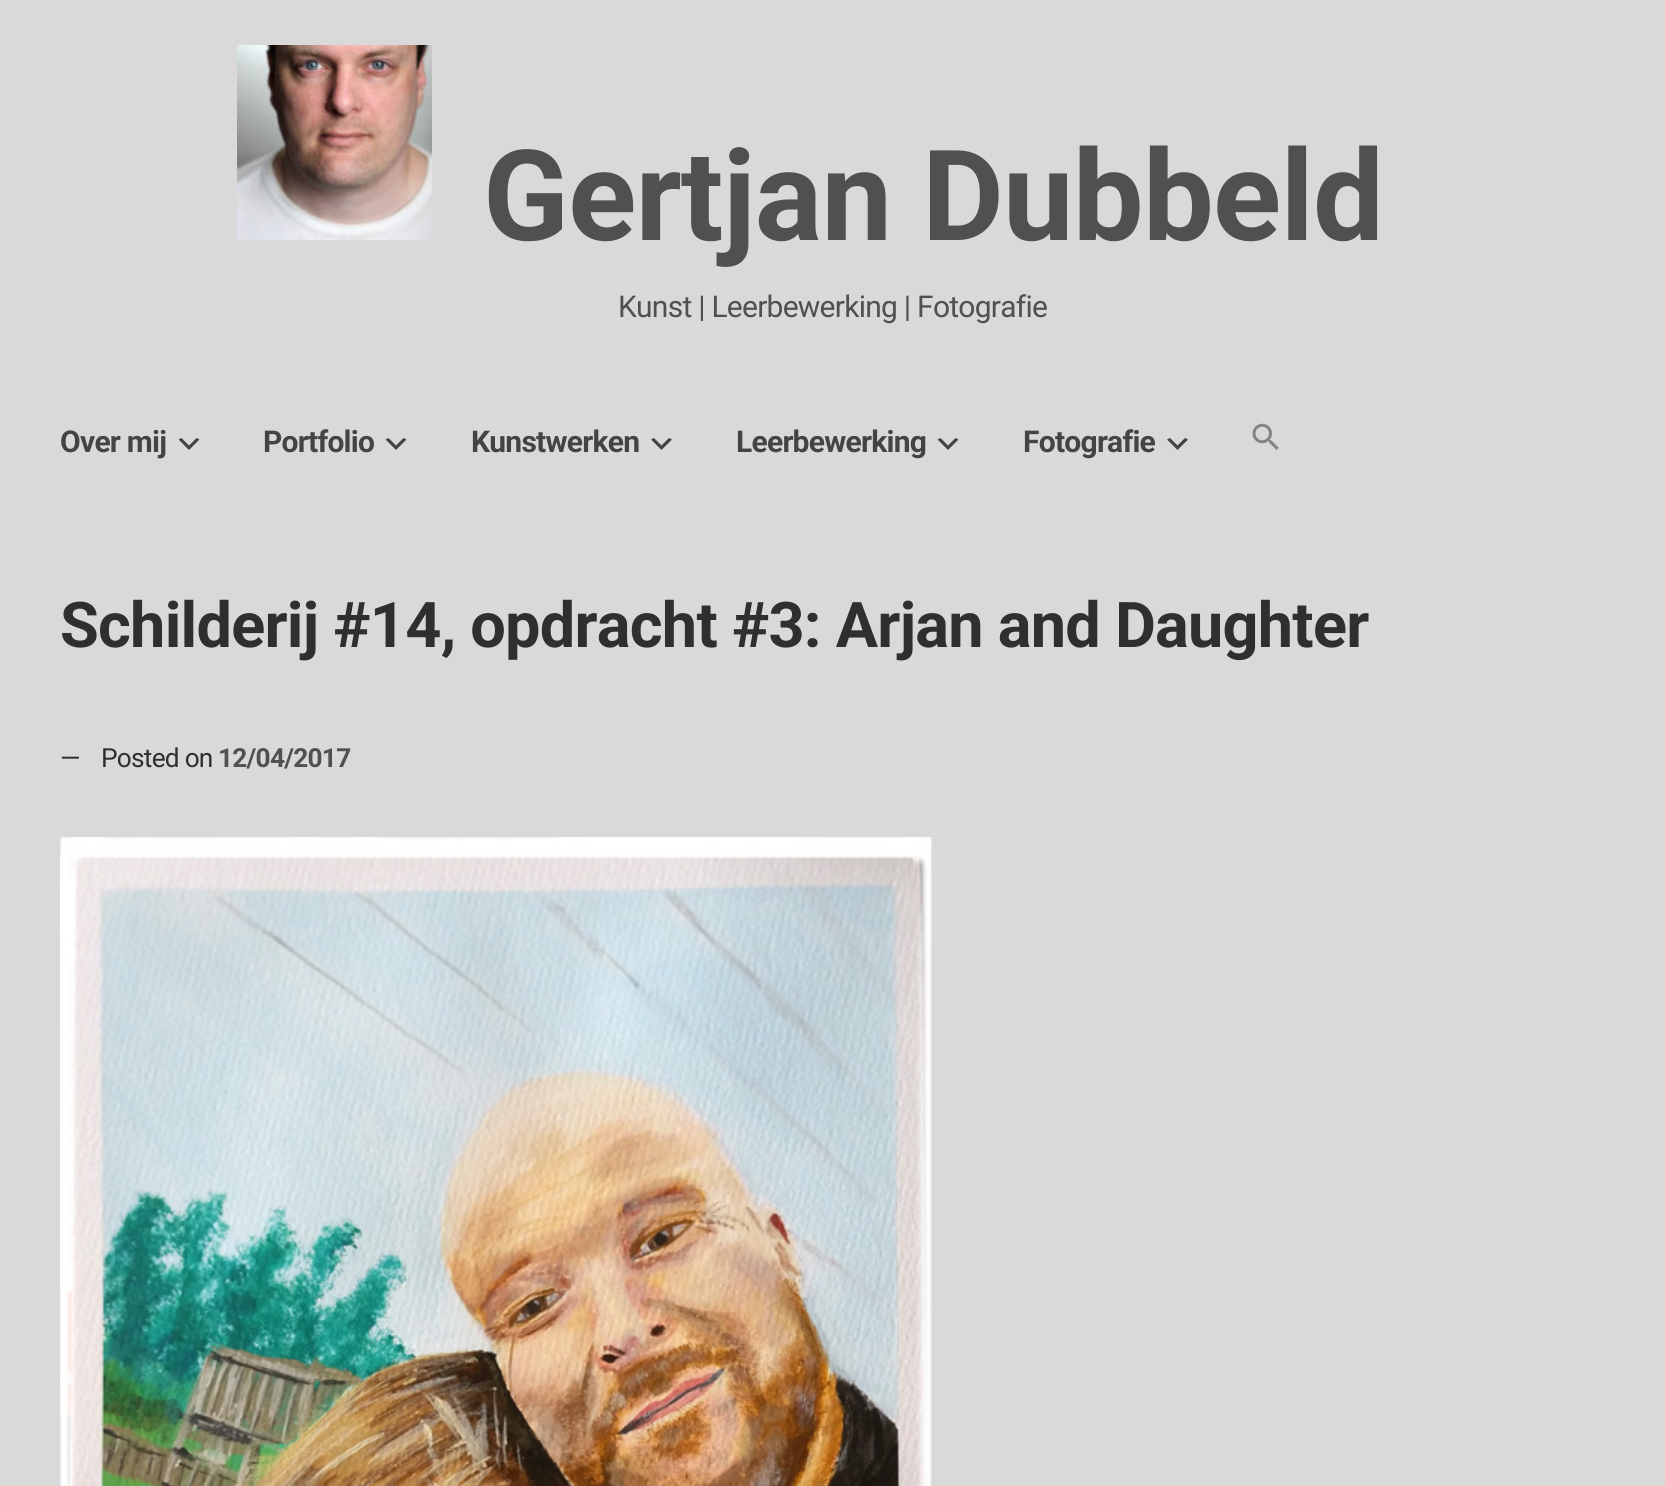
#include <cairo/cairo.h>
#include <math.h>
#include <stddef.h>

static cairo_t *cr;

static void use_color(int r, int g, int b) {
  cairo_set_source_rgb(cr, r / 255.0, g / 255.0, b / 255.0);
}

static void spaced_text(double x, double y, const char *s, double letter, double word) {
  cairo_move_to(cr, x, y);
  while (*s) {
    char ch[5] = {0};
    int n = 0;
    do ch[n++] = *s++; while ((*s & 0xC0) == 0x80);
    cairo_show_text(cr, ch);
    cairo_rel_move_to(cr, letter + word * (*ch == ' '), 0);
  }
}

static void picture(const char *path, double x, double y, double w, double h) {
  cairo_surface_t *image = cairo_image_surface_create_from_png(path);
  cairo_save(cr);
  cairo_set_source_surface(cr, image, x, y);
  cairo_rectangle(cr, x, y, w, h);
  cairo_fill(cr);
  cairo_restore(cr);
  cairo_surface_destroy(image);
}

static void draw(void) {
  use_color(218, 217, 217);
  cairo_paint(cr);
  picture("img_01.png", 237, 45, 195, 195);
  use_color(68, 68, 68);
  cairo_new_path(cr);
  cairo_move_to(cr, 181.5, 438);
  cairo_line_to(cr, 189, 445.5);
  cairo_line_to(cr, 196.5, 438);
  cairo_line_to(cr, 199.5, 439.5);
  cairo_line_to(cr, 189, 450);
  cairo_line_to(cr, 178.5, 439.5);
  cairo_close_path(cr);
  cairo_fill(cr);
  cairo_new_path(cr);
  cairo_move_to(cr, 388.5, 438);
  cairo_line_to(cr, 396, 445.5);
  cairo_line_to(cr, 403.5, 438);
  cairo_line_to(cr, 406.5, 439.5);
  cairo_line_to(cr, 396, 450);
  cairo_line_to(cr, 385.5, 439.5);
  cairo_close_path(cr);
  cairo_fill(cr);
  cairo_new_path(cr);
  cairo_move_to(cr, 654, 438);
  cairo_line_to(cr, 661.5, 445.5);
  cairo_line_to(cr, 669, 438);
  cairo_line_to(cr, 672, 439.5);
  cairo_line_to(cr, 661.5, 450);
  cairo_line_to(cr, 651, 439.5);
  cairo_close_path(cr);
  cairo_fill(cr);
  cairo_new_path(cr);
  cairo_move_to(cr, 940.5, 438);
  cairo_line_to(cr, 948, 445.5);
  cairo_line_to(cr, 955.5, 438);
  cairo_line_to(cr, 958.5, 439.5);
  cairo_line_to(cr, 948, 450);
  cairo_line_to(cr, 937.5, 439.5);
  cairo_close_path(cr);
  cairo_fill(cr);
  cairo_new_path(cr);
  cairo_move_to(cr, 1170, 438);
  cairo_line_to(cr, 1177.5, 445.5);
  cairo_line_to(cr, 1185, 438);
  cairo_line_to(cr, 1188, 439.5);
  cairo_line_to(cr, 1177.5, 450);
  cairo_line_to(cr, 1167, 439.5);
  cairo_close_path(cr);
  cairo_fill(cr);
  picture("img_02.png", 1252, 423, 27, 27);
  picture("img_03.png", 60, 837, 872, 649);
  cairo_select_font_face(cr, "Roboto", CAIRO_FONT_SLANT_NORMAL, CAIRO_FONT_WEIGHT_BOLD);
  cairo_set_font_size(cr, 126);
  use_color(80, 80, 80);
  spaced_text(483, 240, "Gertjan Dubbeld", -0.75, 0);
  cairo_select_font_face(cr, "Roboto", CAIRO_FONT_SLANT_NORMAL, CAIRO_FONT_WEIGHT_NORMAL);
  cairo_set_font_size(cr, 30);
  spaced_text(618, 317, "Kunst | Leerbewerking | Fotografie", -0.75, 0);
  cairo_select_font_face(cr, "Roboto", CAIRO_FONT_SLANT_NORMAL, CAIRO_FONT_WEIGHT_BOLD);
  use_color(68, 68, 68);
  spaced_text(60, 452, "Over mij", -0.75, 0);
  spaced_text(263, 452, "Portfolio", -0.75, 0);
  spaced_text(471, 452, "Kunstwerken", -0.75, 0);
  spaced_text(736, 452, "Leerbewerking", -0.75, 0);
  spaced_text(1023, 452, "Fotografie", -0.75, 0);
  cairo_set_font_size(cr, 63);
  use_color(47, 47, 47);
  spaced_text(60, 647, "Schilderij #14, opdracht #3: Arjan and Daughter", -0.75, 0);
  cairo_select_font_face(cr, "Roboto", CAIRO_FONT_SLANT_NORMAL, CAIRO_FONT_WEIGHT_NORMAL);
  cairo_set_font_size(cr, 26.25);
  spaced_text(60, 767, "—", -0.75, 0);
  spaced_text(101, 767, "Posted on", -0.75, 0);
  cairo_select_font_face(cr, "Roboto", CAIRO_FONT_SLANT_NORMAL, CAIRO_FONT_WEIGHT_BOLD);
  use_color(80, 80, 80);
  spaced_text(218, 767, "12/04/2017", -0.75, 0);
}

int main(void) {
  cairo_surface_t *surface = cairo_image_surface_create(CAIRO_FORMAT_RGB24, 1665, 1486);
  cr = cairo_create(surface);
  cairo_font_options_t *options = cairo_font_options_create();
  cairo_font_options_set_hint_metrics(options, CAIRO_HINT_METRICS_OFF);
  cairo_font_options_set_hint_style(options, CAIRO_HINT_STYLE_NONE);
  cairo_set_font_options(cr, options);
  cairo_set_miter_limit(cr, 4);
  draw();
  cairo_surface_write_to_png(surface, "out.png");
  cairo_font_options_destroy(options);
  cairo_destroy(cr);
  cairo_surface_destroy(surface);
  return 0;
}
